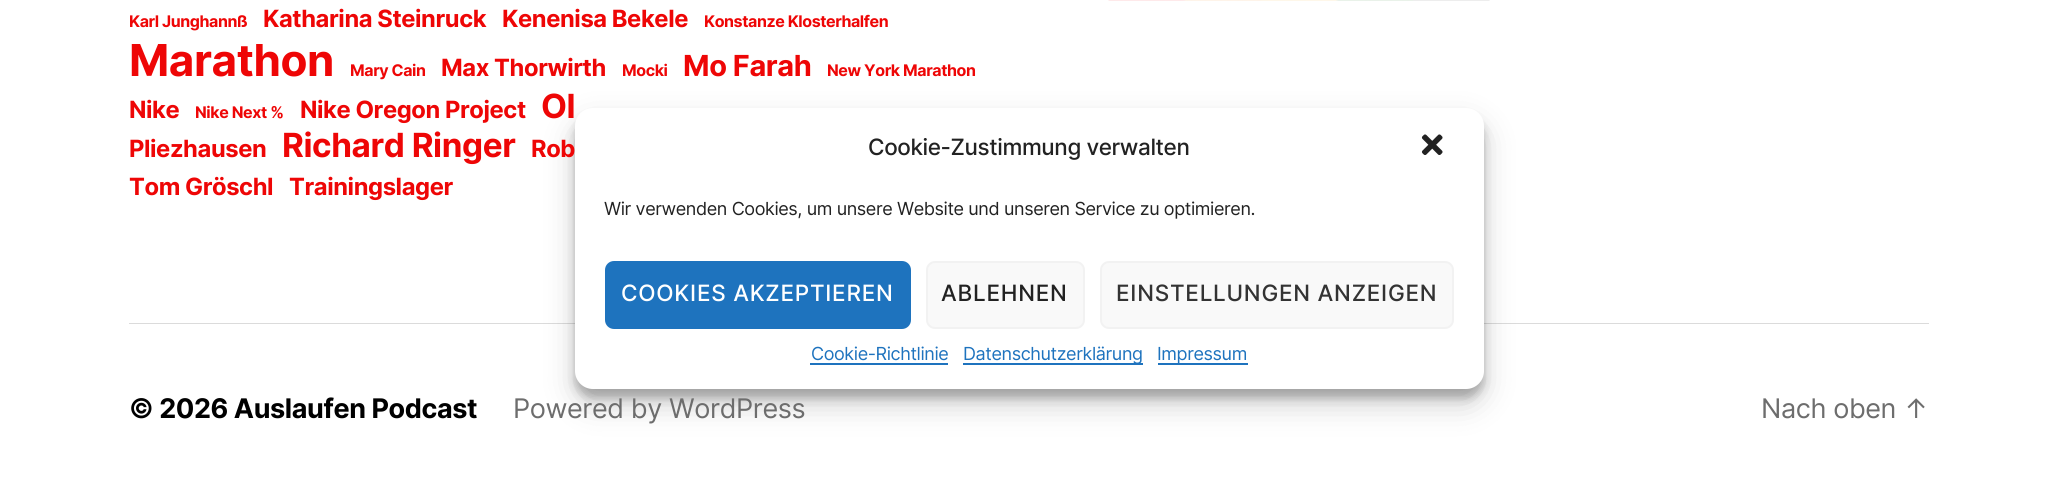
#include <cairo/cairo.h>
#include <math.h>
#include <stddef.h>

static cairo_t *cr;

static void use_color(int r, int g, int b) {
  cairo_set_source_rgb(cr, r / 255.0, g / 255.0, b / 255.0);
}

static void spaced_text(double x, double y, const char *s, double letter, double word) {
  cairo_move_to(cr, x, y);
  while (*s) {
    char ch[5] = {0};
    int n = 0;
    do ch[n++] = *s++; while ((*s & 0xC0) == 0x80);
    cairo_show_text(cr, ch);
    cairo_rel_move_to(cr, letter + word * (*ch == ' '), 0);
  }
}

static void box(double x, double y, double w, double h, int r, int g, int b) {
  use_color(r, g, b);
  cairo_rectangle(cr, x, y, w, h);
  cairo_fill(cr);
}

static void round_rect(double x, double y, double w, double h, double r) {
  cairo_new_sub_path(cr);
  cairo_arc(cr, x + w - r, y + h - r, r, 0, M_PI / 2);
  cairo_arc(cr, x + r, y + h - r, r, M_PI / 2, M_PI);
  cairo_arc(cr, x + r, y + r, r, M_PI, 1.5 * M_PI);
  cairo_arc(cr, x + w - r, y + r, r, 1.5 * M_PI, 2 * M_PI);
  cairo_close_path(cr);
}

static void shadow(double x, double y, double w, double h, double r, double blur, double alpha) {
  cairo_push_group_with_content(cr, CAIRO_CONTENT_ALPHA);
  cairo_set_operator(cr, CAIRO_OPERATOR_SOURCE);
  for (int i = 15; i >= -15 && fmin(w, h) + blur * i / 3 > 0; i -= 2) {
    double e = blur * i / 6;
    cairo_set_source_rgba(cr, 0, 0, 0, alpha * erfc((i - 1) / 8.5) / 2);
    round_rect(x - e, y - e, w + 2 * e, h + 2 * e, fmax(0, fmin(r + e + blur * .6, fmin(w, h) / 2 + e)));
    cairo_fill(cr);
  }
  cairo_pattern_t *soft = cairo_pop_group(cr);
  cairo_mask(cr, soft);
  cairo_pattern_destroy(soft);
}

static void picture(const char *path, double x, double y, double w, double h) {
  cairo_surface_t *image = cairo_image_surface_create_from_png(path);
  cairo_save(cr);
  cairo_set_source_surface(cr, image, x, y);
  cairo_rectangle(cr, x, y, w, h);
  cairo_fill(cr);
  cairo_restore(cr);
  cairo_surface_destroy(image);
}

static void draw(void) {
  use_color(255, 255, 255);
  cairo_paint(cr);
  box(129, 323, 1800, 1, 219, 219, 219);
  picture("img_01.png", 1108, 0, 382, 1);
  use_color(0, 0, 0);
  shadow(575, 117, 909, 281, 18, 4.5, 0.23);
  shadow(575, 123, 909, 281, 18, 15, 0.19);
  use_color(255, 255, 255);
  round_rect(575, 108, 909, 281, 18);
  cairo_fill(cr);
  picture("img_02.png", 1421, 134, 22, 21);
  use_color(30, 115, 190);
  round_rect(606, 262, 304, 66, 8);
  cairo_fill_preserve(cr);
  cairo_stroke(cr);
  use_color(249, 249, 249);
  round_rect(927, 262, 157, 66, 8);
  cairo_fill_preserve(cr);
  use_color(242, 242, 242);
  cairo_stroke(cr);
  use_color(249, 249, 249);
  round_rect(1101, 262, 352, 66, 8);
  cairo_fill_preserve(cr);
  use_color(242, 242, 242);
  cairo_stroke(cr);
  box(810, 363, 138, 2, 30, 115, 190);
  box(963, 363, 180, 2, 30, 115, 190);
  box(1158, 363, 90, 2, 30, 115, 190);
  cairo_select_font_face(cr, "Inter", CAIRO_FONT_SLANT_NORMAL, CAIRO_FONT_WEIGHT_BOLD);
  cairo_set_font_size(cr, 16);
  use_color(238, 6, 6);
  spaced_text(129, 27, "Karl Junghannß", -0.4, 0);
  cairo_set_font_size(cr, 23.75);
  spaced_text(263, 27, "Katharina Steinruck", -0.4, 0);
  spaced_text(502, 27, "Kenenisa Bekele", -0.4, 0);
  cairo_set_font_size(cr, 16);
  spaced_text(704, 27, "Konstanze Klosterhalfen", -0.4, 0);
  cairo_set_font_size(cr, 44);
  spaced_text(129, 76, "Marathon", -0.4, 0);
  cairo_set_font_size(cr, 16);
  spaced_text(350, 76, "Mary Cain", -0.4, 0);
  cairo_set_font_size(cr, 23.75);
  spaced_text(441, 76, "Max Thorwirth", -0.4, 0);
  cairo_set_font_size(cr, 16);
  spaced_text(622, 76, "Mocki", -0.4, 0);
  cairo_set_font_size(cr, 29);
  spaced_text(683, 76, "Mo Farah", -0.4, 0);
  cairo_set_font_size(cr, 16);
  spaced_text(827, 76, "New York Marathon", -0.4, 0);
  cairo_set_font_size(cr, 23.75);
  spaced_text(129, 118, "Nike", -0.4, 0);
  cairo_set_font_size(cr, 16);
  spaced_text(195, 118, "Nike Next %", -0.4, 0);
  cairo_set_font_size(cr, 23.75);
  spaced_text(300, 118, "Nike Oregon Project", -0.4, 0);
  cairo_set_font_size(cr, 33.25);
  spaced_text(541, 118, "Ol", -0.4, 0);
  cairo_set_font_size(cr, 23.75);
  spaced_text(129, 157, "Pliezhausen", -0.4, 0);
  cairo_set_font_size(cr, 33.25);
  spaced_text(282, 157, "Richard Ringer", -0.4, 0);
  cairo_set_font_size(cr, 23.75);
  spaced_text(531, 157, "Rob", -0.4, 0);
  spaced_text(129, 195, "Tom Gröschl", -0.4, 0);
  spaced_text(289, 195, "Trainingslager", -0.4, 0);
  cairo_select_font_face(cr, "Inter Medium", CAIRO_FONT_SLANT_NORMAL, CAIRO_FONT_WEIGHT_NORMAL);
  cairo_set_font_size(cr, 22.5);
  use_color(34, 34, 34);
  spaced_text(868, 155, "Cookie-Zustimmung verwalten", -0.4, 0);
  cairo_select_font_face(cr, "Inter", CAIRO_FONT_SLANT_NORMAL, CAIRO_FONT_WEIGHT_NORMAL);
  cairo_set_font_size(cr, 18);
  spaced_text(604, 215, "Wir verwenden Cookies, um unsere Website und unseren Service zu optimieren.", -0.4, 0);
  cairo_select_font_face(cr, "Inter Medium", CAIRO_FONT_SLANT_NORMAL, CAIRO_FONT_WEIGHT_NORMAL);
  cairo_set_font_size(cr, 22.5);
  use_color(255, 255, 255);
  spaced_text(621, 301, "COOKIES AKZEPTIEREN", 0.75, 0);
  use_color(34, 34, 34);
  spaced_text(941, 301, "ABLEHNEN", 0.75, 0);
  use_color(51, 51, 51);
  spaced_text(1116, 301, "EINSTELLUNGEN ANZEIGEN", 0.75, 0);
  cairo_select_font_face(cr, "Inter", CAIRO_FONT_SLANT_NORMAL, CAIRO_FONT_WEIGHT_NORMAL);
  cairo_set_font_size(cr, 18);
  use_color(30, 115, 190);
  spaced_text(811, 360, "Cookie-Richtlinie", -0.4, 0);
  spaced_text(963, 360, "Datenschutzerklärung", -0.4, 0);
  spaced_text(1157, 360, "Impressum", -0.4, 0);
  cairo_select_font_face(cr, "Inter", CAIRO_FONT_SLANT_NORMAL, CAIRO_FONT_WEIGHT_BOLD);
  cairo_set_font_size(cr, 27);
  use_color(0, 0, 0);
  spaced_text(129, 418, "© 2026 Auslaufen Podcast", -0.4, 0);
  cairo_select_font_face(cr, "Inter", CAIRO_FONT_SLANT_NORMAL, CAIRO_FONT_WEIGHT_NORMAL);
  use_color(109, 109, 109);
  spaced_text(513, 418, "Powered by WordPress", -0.4, 0);
  spaced_text(1761, 418, "Nach oben ↑", -0.4, 0);
}

int main(void) {
  cairo_surface_t *surface = cairo_image_surface_create(CAIRO_FORMAT_RGB24, 2057, 493);
  cr = cairo_create(surface);
  cairo_font_options_t *options = cairo_font_options_create();
  cairo_font_options_set_hint_metrics(options, CAIRO_HINT_METRICS_OFF);
  cairo_font_options_set_hint_style(options, CAIRO_HINT_STYLE_NONE);
  cairo_set_font_options(cr, options);
  cairo_set_miter_limit(cr, 4);
  draw();
  cairo_surface_write_to_png(surface, "out.png");
  cairo_font_options_destroy(options);
  cairo_destroy(cr);
  cairo_surface_destroy(surface);
  return 0;
}
